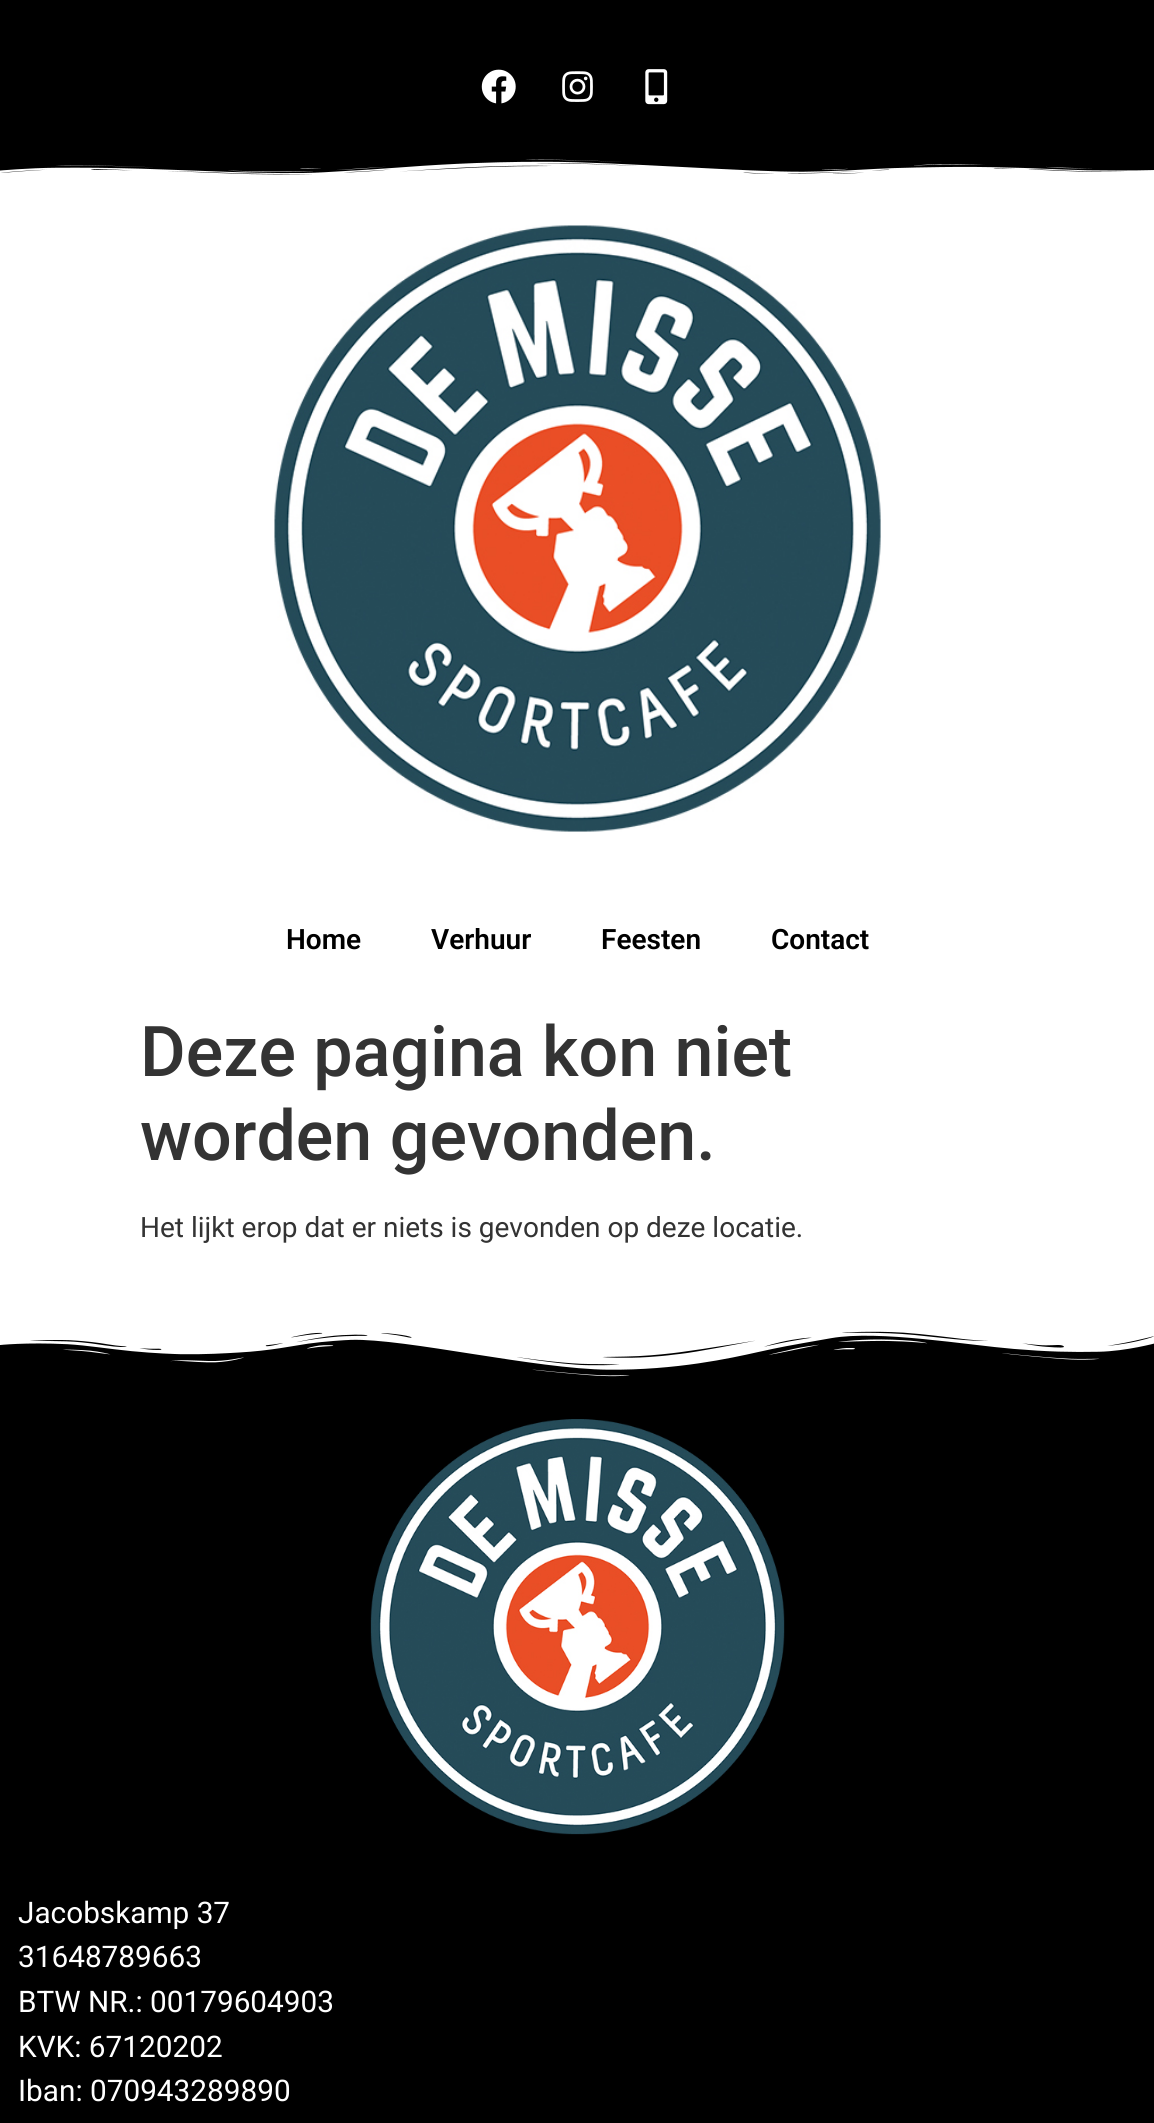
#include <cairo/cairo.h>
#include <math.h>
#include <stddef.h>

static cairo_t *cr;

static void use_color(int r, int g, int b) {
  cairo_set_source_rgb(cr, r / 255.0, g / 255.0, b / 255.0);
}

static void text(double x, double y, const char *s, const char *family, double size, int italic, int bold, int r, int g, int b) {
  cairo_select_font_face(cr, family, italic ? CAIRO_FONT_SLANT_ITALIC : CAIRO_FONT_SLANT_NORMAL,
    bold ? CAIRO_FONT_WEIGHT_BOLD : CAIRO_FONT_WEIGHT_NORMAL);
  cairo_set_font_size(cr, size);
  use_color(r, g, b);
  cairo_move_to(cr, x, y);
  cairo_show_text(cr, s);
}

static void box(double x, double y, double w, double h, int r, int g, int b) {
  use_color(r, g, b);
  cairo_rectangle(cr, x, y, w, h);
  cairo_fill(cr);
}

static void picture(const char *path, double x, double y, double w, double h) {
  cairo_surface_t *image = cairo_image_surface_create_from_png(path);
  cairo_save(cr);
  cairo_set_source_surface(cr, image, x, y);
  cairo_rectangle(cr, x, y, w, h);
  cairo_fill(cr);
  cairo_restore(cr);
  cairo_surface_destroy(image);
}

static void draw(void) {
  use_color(255, 255, 255);
  cairo_paint(cr);
  box(0, 0, 1154, 175, 0, 0, 0);
  picture("img_01.png", 481, 69, 35, 35);
  picture("img_02.png", 562, 71, 31, 31);
  picture("img_03.png", 645, 69, 23, 36);
  picture("img_04.png", 0, 159, 1154, 16);
  picture("img_05.png", 274, 225, 607, 607);
  box(0, 1331, 1154, 792, 0, 0, 0);
  picture("img_06.png", 0, 1327, 1154, 50);
  picture("img_07.png", 370, 1419, 415, 416);
  text(286, 949, "Home", "Roboto SemiBold", 28, 0, 0, 0, 0, 0);
  text(431, 949, "Verhuur", "Roboto SemiBold", 28, 0, 0, 0, 0, 0);
  text(601, 949, "Feesten", "Roboto SemiBold", 28, 0, 0, 0, 0, 0);
  text(771, 949, "Contact", "Roboto SemiBold", 28, 0, 0, 0, 0, 0);
  text(140, 1076, "Deze pagina kon niet", "Roboto Medium", 70, 0, 0, 51, 51, 51);
  text(140, 1160, "worden gevonden.", "Roboto Medium", 70, 0, 0, 51, 51, 51);
  text(140, 1237, "Het lijkt erop dat er niets is gevonden op deze locatie.", "Roboto", 28, 0, 0, 51, 51, 51);
  text(18, 1923, "Jacobskamp 37", "Roboto", 29.75, 0, 0, 255, 255, 255);
  text(18, 1967, "31648789663", "Roboto", 29.75, 0, 0, 255, 255, 255);
  text(18, 2012, "BTW NR.: 00179604903", "Roboto", 29.75, 0, 0, 255, 255, 255);
  text(18, 2057, "KVK: 67120202", "Roboto", 29.75, 0, 0, 255, 255, 255);
  text(18, 2101, "Iban: 070943289890", "Roboto", 29.75, 0, 0, 255, 255, 255);
}

int main(void) {
  cairo_surface_t *surface = cairo_image_surface_create(CAIRO_FORMAT_RGB24, 1154, 2123);
  cr = cairo_create(surface);
  cairo_font_options_t *options = cairo_font_options_create();
  cairo_font_options_set_hint_metrics(options, CAIRO_HINT_METRICS_OFF);
  cairo_font_options_set_hint_style(options, CAIRO_HINT_STYLE_NONE);
  cairo_set_font_options(cr, options);
  cairo_set_miter_limit(cr, 4);
  draw();
  cairo_surface_write_to_png(surface, "out.png");
  cairo_font_options_destroy(options);
  cairo_destroy(cr);
  cairo_surface_destroy(surface);
  return 0;
}
